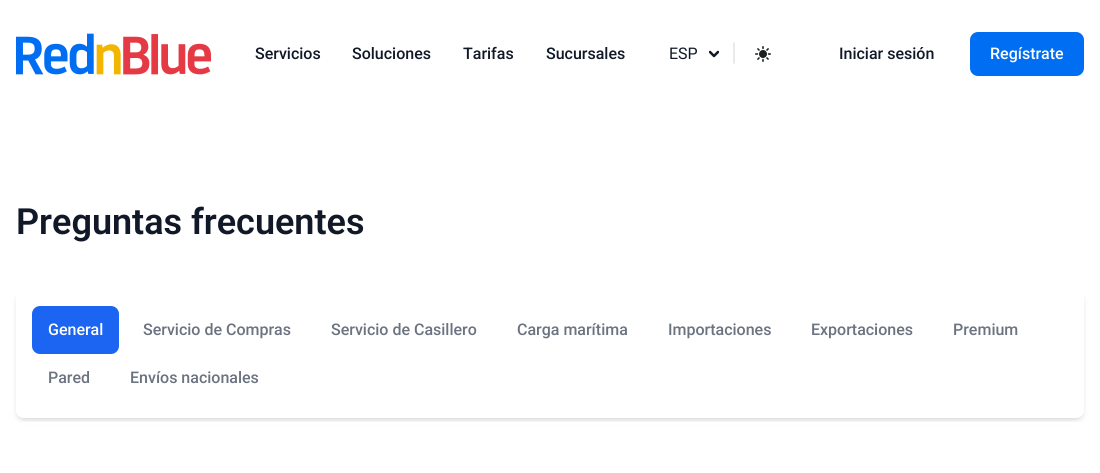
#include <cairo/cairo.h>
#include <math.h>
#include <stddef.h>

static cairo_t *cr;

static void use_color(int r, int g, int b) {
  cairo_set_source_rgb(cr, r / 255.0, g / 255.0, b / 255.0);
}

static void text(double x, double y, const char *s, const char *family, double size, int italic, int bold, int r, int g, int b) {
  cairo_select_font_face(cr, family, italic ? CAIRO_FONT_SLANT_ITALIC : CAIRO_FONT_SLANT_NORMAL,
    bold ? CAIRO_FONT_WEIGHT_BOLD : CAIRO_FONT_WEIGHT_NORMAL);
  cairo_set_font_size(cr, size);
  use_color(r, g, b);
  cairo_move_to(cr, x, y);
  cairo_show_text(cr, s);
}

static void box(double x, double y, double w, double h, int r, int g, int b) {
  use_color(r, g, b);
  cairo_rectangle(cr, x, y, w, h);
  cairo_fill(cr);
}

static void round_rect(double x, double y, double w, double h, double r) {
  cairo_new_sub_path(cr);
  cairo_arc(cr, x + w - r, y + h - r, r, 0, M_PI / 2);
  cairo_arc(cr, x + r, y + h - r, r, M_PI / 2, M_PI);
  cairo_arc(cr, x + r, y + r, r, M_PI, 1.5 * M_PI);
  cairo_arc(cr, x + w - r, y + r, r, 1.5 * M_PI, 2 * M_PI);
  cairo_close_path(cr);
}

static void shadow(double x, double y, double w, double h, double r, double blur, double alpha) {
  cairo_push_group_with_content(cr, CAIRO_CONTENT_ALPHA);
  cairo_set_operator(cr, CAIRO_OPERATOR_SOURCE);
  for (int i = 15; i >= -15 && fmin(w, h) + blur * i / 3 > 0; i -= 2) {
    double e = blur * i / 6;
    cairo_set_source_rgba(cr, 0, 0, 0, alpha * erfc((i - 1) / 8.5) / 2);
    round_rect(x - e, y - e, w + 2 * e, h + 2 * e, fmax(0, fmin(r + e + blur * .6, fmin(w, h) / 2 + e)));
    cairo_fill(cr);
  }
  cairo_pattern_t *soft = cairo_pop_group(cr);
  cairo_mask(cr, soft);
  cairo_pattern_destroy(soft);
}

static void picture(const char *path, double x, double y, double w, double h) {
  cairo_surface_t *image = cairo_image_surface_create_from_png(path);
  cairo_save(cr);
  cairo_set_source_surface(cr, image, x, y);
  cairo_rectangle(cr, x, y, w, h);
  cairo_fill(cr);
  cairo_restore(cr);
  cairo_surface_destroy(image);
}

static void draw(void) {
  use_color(255, 255, 255);
  cairo_paint(cr);
  picture("img_01.png", 16, 33, 195, 42);
  cairo_save(cr);
  cairo_rectangle(cr, 709, 49, 10, 10);
  cairo_clip(cr);
  cairo_new_path(cr);
  cairo_move_to(cr, 710, 52);
  cairo_line_to(cr, 714, 56);
  cairo_line_to(cr, 718, 52);
  use_color(17, 24, 39);
  cairo_set_line_width(cr, 2.5);
  cairo_set_line_cap(cr, CAIRO_LINE_CAP_ROUND);
  cairo_set_line_join(cr, CAIRO_LINE_JOIN_ROUND);
  cairo_stroke(cr);
  cairo_restore(cr);
  cairo_new_path(cr);
  cairo_move_to(cr, 734, 42.5);
  cairo_line_to(cr, 734, 63.5);
  use_color(209, 213, 219);
  cairo_set_line_width(cr, 1);
  cairo_stroke(cr);
  picture("img_02.png", 755, 46, 16, 16);
  use_color(0, 110, 242);
  round_rect(970, 32, 114, 44, 8);
  cairo_fill(cr);
  cairo_save(cr);
  cairo_set_fill_rule(cr, CAIRO_FILL_RULE_EVEN_ODD);
  cairo_new_path(cr);
  cairo_move_to(cr, 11, 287);
  cairo_line_to(cr, 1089, 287);
  cairo_line_to(cr, 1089, 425);
  cairo_line_to(cr, 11, 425);
  cairo_close_path(cr);
  cairo_move_to(cr, 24, 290);
  cairo_line_to(cr, 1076, 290);
  cairo_curve_to(cr, 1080.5, 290, 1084, 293.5, 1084, 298);
  cairo_line_to(cr, 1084, 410);
  cairo_curve_to(cr, 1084, 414.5, 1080.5, 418, 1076, 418);
  cairo_line_to(cr, 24, 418);
  cairo_curve_to(cr, 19.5, 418, 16, 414.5, 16, 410);
  cairo_line_to(cr, 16, 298);
  cairo_curve_to(cr, 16, 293.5, 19.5, 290, 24, 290);
  cairo_close_path(cr);
  cairo_clip(cr);
  use_color(0, 0, 0);
  shadow(18, 294, 1064, 124, 6, 2, 0.1);
  cairo_restore(cr);
  cairo_save(cr);
  cairo_set_fill_rule(cr, CAIRO_FILL_RULE_EVEN_ODD);
  cairo_new_path(cr);
  cairo_move_to(cr, 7, 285);
  cairo_line_to(cr, 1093, 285);
  cairo_line_to(cr, 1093, 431);
  cairo_line_to(cr, 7, 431);
  cairo_close_path(cr);
  cairo_move_to(cr, 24, 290);
  cairo_line_to(cr, 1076, 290);
  cairo_curve_to(cr, 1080.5, 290, 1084, 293.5, 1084, 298);
  cairo_line_to(cr, 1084, 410);
  cairo_curve_to(cr, 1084, 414.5, 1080.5, 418, 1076, 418);
  cairo_line_to(cr, 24, 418);
  cairo_curve_to(cr, 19.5, 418, 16, 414.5, 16, 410);
  cairo_line_to(cr, 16, 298);
  cairo_curve_to(cr, 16, 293.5, 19.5, 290, 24, 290);
  cairo_close_path(cr);
  cairo_clip(cr);
  use_color(0, 0, 0);
  shadow(17, 295, 1066, 126, 7, 3, 0.1);
  cairo_restore(cr);
  use_color(28, 100, 242);
  round_rect(32, 306, 87, 48, 8);
  cairo_fill(cr);
  box(18, 422, 1064, 3, 255, 255, 255);
  text(255, 59, "Servicios", "Roboto Medium", 16, 0, 0, 17, 24, 39);
  text(352, 59, "Soluciones", "Roboto Medium", 16, 0, 0, 17, 24, 39);
  text(463, 59, "Tarifas", "Roboto Medium", 16, 0, 0, 17, 24, 39);
  text(546, 59, "Sucursales", "Roboto Medium", 16, 0, 0, 17, 24, 39);
  text(669, 59, "ESP", "Roboto", 16, 0, 0, 17, 24, 39);
  text(839, 59, "Iniciar sesión", "Roboto Medium", 16, 0, 0, 17, 24, 39);
  text(990, 59, "Regístrate", "Roboto Medium", 16, 0, 0, 255, 255, 255);
  text(16, 234, "Preguntas frecuentes", "Roboto SemiBold", 36, 0, 0, 17, 24, 39);
  text(48, 335, "General", "Roboto Medium", 16, 0, 0, 255, 255, 255);
  text(143, 335, "Servicio de Compras", "Roboto Medium", 16, 0, 0, 107, 114, 128);
  text(331, 335, "Servicio de Casillero", "Roboto Medium", 16, 0, 0, 107, 114, 128);
  text(517, 335, "Carga marítima", "Roboto Medium", 16, 0, 0, 107, 114, 128);
  text(668, 335, "Importaciones", "Roboto Medium", 16, 0, 0, 107, 114, 128);
  text(811, 335, "Exportaciones", "Roboto Medium", 16, 0, 0, 107, 114, 128);
  text(953, 335, "Premium", "Roboto Medium", 16, 0, 0, 107, 114, 128);
  text(48, 383, "Pared", "Roboto Medium", 16, 0, 0, 107, 114, 128);
  text(130, 383, "Envíos nacionales", "Roboto Medium", 16, 0, 0, 107, 114, 128);
}

int main(void) {
  cairo_surface_t *surface = cairo_image_surface_create(CAIRO_FORMAT_RGB24, 1100, 473);
  cr = cairo_create(surface);
  cairo_font_options_t *options = cairo_font_options_create();
  cairo_font_options_set_hint_metrics(options, CAIRO_HINT_METRICS_OFF);
  cairo_font_options_set_hint_style(options, CAIRO_HINT_STYLE_NONE);
  cairo_set_font_options(cr, options);
  cairo_set_miter_limit(cr, 4);
  draw();
  cairo_surface_write_to_png(surface, "out.png");
  cairo_font_options_destroy(options);
  cairo_destroy(cr);
  cairo_surface_destroy(surface);
  return 0;
}
